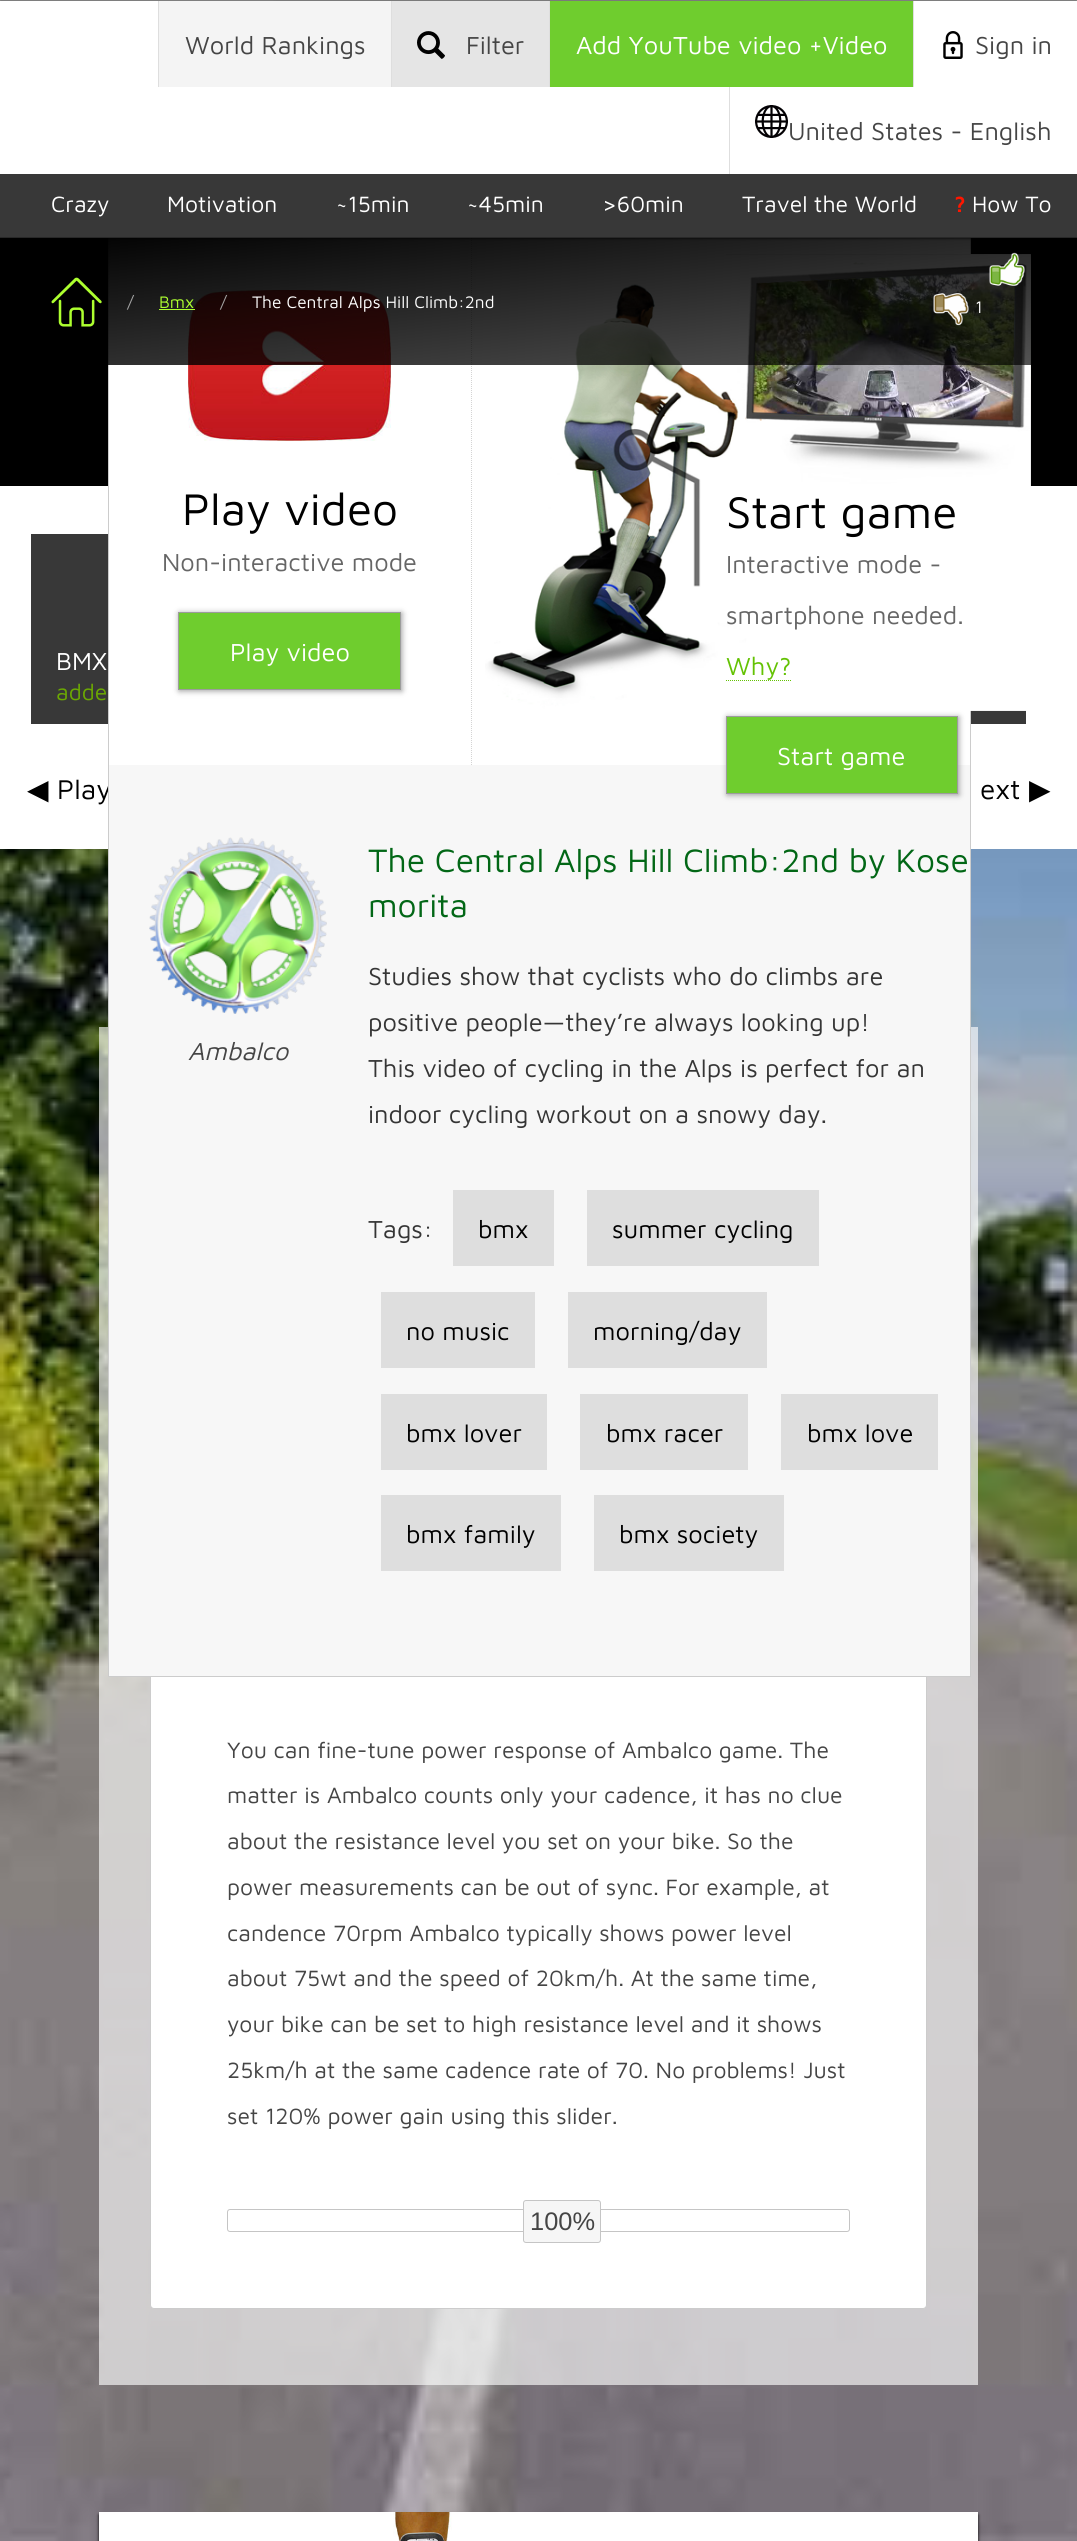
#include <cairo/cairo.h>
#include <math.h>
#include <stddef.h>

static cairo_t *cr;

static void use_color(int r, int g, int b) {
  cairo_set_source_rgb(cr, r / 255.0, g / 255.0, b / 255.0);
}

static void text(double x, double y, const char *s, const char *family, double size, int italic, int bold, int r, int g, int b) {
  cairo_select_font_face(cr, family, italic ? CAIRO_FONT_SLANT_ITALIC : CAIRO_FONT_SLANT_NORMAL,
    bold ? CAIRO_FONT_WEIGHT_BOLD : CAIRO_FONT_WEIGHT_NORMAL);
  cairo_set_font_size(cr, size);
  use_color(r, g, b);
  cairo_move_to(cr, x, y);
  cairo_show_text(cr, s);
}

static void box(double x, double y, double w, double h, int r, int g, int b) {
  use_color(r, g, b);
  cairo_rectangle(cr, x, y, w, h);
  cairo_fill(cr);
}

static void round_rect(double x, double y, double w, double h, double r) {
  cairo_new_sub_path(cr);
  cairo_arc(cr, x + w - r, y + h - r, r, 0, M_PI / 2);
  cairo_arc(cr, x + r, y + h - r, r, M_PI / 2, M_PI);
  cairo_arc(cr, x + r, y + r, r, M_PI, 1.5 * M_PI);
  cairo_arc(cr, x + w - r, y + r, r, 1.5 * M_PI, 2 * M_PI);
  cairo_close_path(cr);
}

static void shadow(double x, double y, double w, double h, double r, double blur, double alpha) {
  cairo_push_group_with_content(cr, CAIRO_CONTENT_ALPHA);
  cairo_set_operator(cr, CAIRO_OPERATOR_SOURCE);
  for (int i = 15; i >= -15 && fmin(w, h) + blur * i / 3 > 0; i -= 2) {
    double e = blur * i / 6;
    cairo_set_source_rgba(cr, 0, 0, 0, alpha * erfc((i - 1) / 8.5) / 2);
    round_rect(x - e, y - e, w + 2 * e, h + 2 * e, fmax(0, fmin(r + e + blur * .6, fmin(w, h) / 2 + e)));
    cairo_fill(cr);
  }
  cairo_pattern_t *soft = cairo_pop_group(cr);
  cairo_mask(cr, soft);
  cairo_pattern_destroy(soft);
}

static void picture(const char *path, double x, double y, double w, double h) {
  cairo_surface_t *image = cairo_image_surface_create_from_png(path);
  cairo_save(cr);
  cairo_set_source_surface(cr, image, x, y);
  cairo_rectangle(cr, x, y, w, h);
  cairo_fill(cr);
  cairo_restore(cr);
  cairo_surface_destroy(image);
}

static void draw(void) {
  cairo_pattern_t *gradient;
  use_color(255, 255, 255);
  cairo_paint(cr);
  box(0, 0, 1077, 1, 204, 204, 204);
  box(0, 238, 1077, 245, 0, 0, 0);
  picture("img_04.png", 51, 277, 51, 50);
  gradient = cairo_pattern_create_linear(539, 1, 539, 486);
  cairo_pattern_add_color_stop_rgba(gradient, 0, 1, 1, 1, 0);
  cairo_pattern_add_color_stop_rgba(gradient, 0, 0, 0, 0, 0);
  cairo_pattern_add_color_stop_rgba(gradient, 1, 0, 0, 0, 1);
  cairo_set_source(cr, gradient);
  cairo_pattern_destroy(gradient);
  cairo_rectangle(cr, 0, 483, 1077, 3);
  cairo_fill(cr);
  use_color(0, 0, 0);
  shadow(268, 28, 541, 382, 10, 16, 0.75);
  box(31, 534, 77, 190, 56, 56, 56);
  box(971, 710, 55, 14, 56, 56, 56);
  picture("img_12.png", 0, 849, 1077, 1692);
  cairo_set_source_rgba(cr, 1, 1, 1, 0.63);
  cairo_rectangle(cr, 99, 1027, 879, 1358);
  cairo_fill(cr);
  use_color(255, 255, 255);
  round_rect(150.5, 1649.5, 776, 659, 3.5);
  cairo_fill_preserve(cr);
  use_color(204, 204, 204);
  cairo_set_line_width(cr, 1);
  cairo_stroke(cr);
  round_rect(227.5, 2209.5, 622, 22, 2.5);
  use_color(197, 197, 197);
  cairo_stroke(cr);
  use_color(246, 246, 246);
  round_rect(523.5, 2200.5, 77, 42, 2.5);
  cairo_fill_preserve(cr);
  use_color(197, 197, 197);
  cairo_stroke(cr);
  use_color(0, 0, 0);
  shadow(99, 2515, 879, 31, 0, 1.5, 1);
  box(99, 2512, 879, 29, 255, 255, 255);
  picture("img_11.png", 393, 2512, 59, 29);
  text(56, 670, "BMX", "Maven Pro", 25.4, 0, 0, 255, 255, 255);
  text(56, 700, "adde", "Maven Pro", 22.9, 0, 0, 107, 168, 2);
  text(27, 799, "◀", "DejaVu Sans", 28, 0, 0, 0, 0, 0);
  text(57, 799, "Play", "Maven Pro", 28, 0, 0, 0, 0, 0);
  box(109, 765, 861, 911, 247, 247, 247);
  cairo_rectangle(cr, 108.5, 227.5, 862, 1449);
  use_color(204, 204, 204);
  cairo_stroke(cr);
  box(109, 238, 861, 248, 255, 255, 255);
  cairo_new_path(cr);
  cairo_move_to(cr, 471.5, 228);
  cairo_line_to(cr, 471.5, 765);
  use_color(212, 212, 212);
  cairo_set_dash(cr, (double[]){1, 1}, 2, 0);
  cairo_stroke(cr);
  use_color(0, 0, 0);
  shadow(0, 1, 1077, 237, 0, 1.5, 1);
  box(0, 1, 1077, 173, 255, 255, 255);
  text(788, 140, "United States - English", "Maven Pro", 25.4, 0, 0, 69, 69, 69);
  picture("img_03.png", 755, 105, 33, 33);
  box(729, 87, 1, 87, 222, 222, 222);
  box(159, 1, 232, 86, 244, 244, 244);
  text(185, 54, "World Rankings", "Maven Pro", 25.4, 0, 0, 69, 69, 69);
  box(158, 1, 1, 86, 222, 222, 222);
  box(392, 1, 157, 86, 229, 229, 229);
  text(466, 54, "Filter", "Maven Pro", 25.4, 0, 0, 69, 69, 69);
  picture("img_01.png", 417, 31, 28, 28);
  box(391, 1, 1, 86, 222, 222, 222);
  box(550, 1, 363, 86, 111, 205, 46);
  text(576, 54, "Add YouTube video +Video", "Maven Pro", 25.4, 0, 0, 255, 255, 255);
  box(549, 1, 1, 86, 222, 222, 222);
  text(975, 54, "Sign in", "Maven Pro", 25.4, 0, 0, 69, 69, 69);
  picture("img_02.png", 943, 31, 20, 28);
  box(913, 1, 1, 86, 222, 222, 222);
  picture("img_09.png", 726, 254, 305, 178);
  picture("img_08.png", 485, 254, 546, 457);
  picture("img_07.png", 188, 290, 203, 151);
  cairo_set_source_rgba(cr, 0, 0, 0, 0.5);
  cairo_rectangle(cr, 108, 238, 923, 127);
  cairo_fill(cr);
  gradient = cairo_pattern_create_linear(524, 176, 568, 552);
  cairo_pattern_add_color_stop_rgba(gradient, 0, 0, 0, 0, 1);
  cairo_pattern_add_color_stop_rgba(gradient, 1, 0, 0, 0, 0);
  cairo_set_source(cr, gradient);
  cairo_pattern_destroy(gradient);
  cairo_rectangle(cr, 108, 238, 923, 127);
  cairo_fill(cr);
  text(252, 308, "The Central Alps Hill Climb:2nd", "Maven Pro", 17.25, 0, 0, 255, 255, 255);
  text(220, 308, "/", "Maven Pro", 17.25, 0, 0, 164, 164, 164);
  text(159, 308, "Bmx", "Maven Pro", 17.25, 0, 0, 173, 255, 47);
  box(159, 309, 36, 1, 173, 255, 47);
  text(127, 308, "/", "Maven Pro", 17.25, 0, 0, 164, 164, 164);
  picture("img_05.png", 989, 252, 36, 34);
  text(975, 313, "1", "Maven Pro", 17.25, 0, 0, 255, 255, 255);
  picture("img_06.png", 933, 293, 36, 33);
  box(0, 174, 1077, 63, 56, 56, 56);
  text(742, 212, "Travel the World", "Maven Pro", 22.9, 0, 0, 255, 255, 255);
  text(602, 212, ">60min", "Maven Pro", 22.9, 0, 0, 255, 255, 255);
  text(467, 212, "~45min", "Maven Pro", 22.9, 0, 0, 255, 255, 255);
  text(336, 212, "~15min", "Maven Pro", 22.9, 0, 0, 255, 255, 255);
  text(167, 212, "Motivation", "Maven Pro", 22.9, 0, 0, 255, 255, 255);
  text(51, 212, "Crazy", "Maven Pro", 22.9, 0, 0, 255, 255, 255);
  text(972, 212, "How To", "Maven Pro", 22.9, 0, 0, 255, 255, 255);
  text(954, 212, "?", "Maven Pro", 22.9, 0, 1, 255, 22, 0);
  box(0, 237, 1077, 1, 40, 40, 40);
  box(594, 1495, 190, 76, 222, 222, 222);
  text(619, 1543, "bmx society", "Maven Pro", 25.4, 0, 0, 0, 0, 0);
  box(381, 1495, 180, 76, 222, 222, 222);
  text(406, 1543, "bmx family", "Maven Pro", 25.4, 0, 0, 0, 0, 0);
  box(781, 1394, 157, 76, 222, 222, 222);
  text(807, 1442, "bmx love", "Maven Pro", 25.4, 0, 0, 0, 0, 0);
  box(580, 1394, 168, 76, 222, 222, 222);
  text(606, 1442, "bmx racer", "Maven Pro", 25.4, 0, 0, 0, 0, 0);
  box(381, 1394, 166, 76, 222, 222, 222);
  text(406, 1442, "bmx lover", "Maven Pro", 25.4, 0, 0, 0, 0, 0);
  box(568, 1292, 199, 76, 222, 222, 222);
  text(593, 1340, "morning/day", "Maven Pro", 25.4, 0, 0, 0, 0, 0);
  box(381, 1292, 154, 76, 222, 222, 222);
  text(406, 1340, "no music", "Maven Pro", 25.4, 0, 0, 0, 0, 0);
  box(587, 1190, 232, 76, 222, 222, 222);
  text(612, 1238, "summer cycling", "Maven Pro", 25.4, 0, 0, 0, 0, 0);
  box(453, 1190, 101, 76, 222, 222, 222);
  text(478, 1238, "bmx", "Maven Pro", 25.4, 0, 0, 0, 0, 0);
  text(368, 1238, "Tags:", "Maven Pro", 25.4, 0, 0, 53, 53, 53);
  text(368, 1123, "indoor cycling workout on a snowy day.", "Maven Pro", 25.4, 0, 0, 53, 53, 53);
  text(368, 1077, "This video of cycling in the Alps is perfect for an", "Maven Pro", 25.4, 0, 0, 53, 53, 53);
  text(368, 1031, "positive people—they’re always looking up!", "Maven Pro", 25.4, 0, 0, 53, 53, 53);
  text(368, 985, "Studies show that cyclists who do climbs are", "Maven Pro", 25.4, 0, 0, 53, 53, 53);
  text(368, 917, "morita", "Maven Pro", 33.5, 0, 0, 2, 103, 22);
  text(368, 872, "The Central Alps Hill Climb:2nd by Kose", "Maven Pro", 33.5, 0, 0, 2, 103, 22);
  text(188, 1060, "Ambalco", "Maven Pro", 25.4, 1, 0, 69, 69, 69);
  picture("img_10.png", 149, 837, 178, 177);
  use_color(102, 102, 102);
  shadow(727, 717, 232, 78, 0, 3, 0.63);
  use_color(111, 205, 46);
  cairo_rectangle(cr, 726.5, 716.5, 231, 77);
  cairo_fill_preserve(cr);
  use_color(156, 156, 156);
  cairo_set_dash(cr, NULL, 0, 0);
  cairo_stroke(cr);
  text(777, 765, "Start game", "Maven Pro", 25.4, 0, 0, 255, 255, 255);
  text(726, 675, "Why?", "Maven Pro", 25.4, 0, 0, 100, 194, 4);
  cairo_new_path(cr);
  cairo_move_to(cr, 726, 680.5);
  cairo_line_to(cr, 791, 680.5);
  cairo_set_dash(cr, (double[]){1, 1}, 2, 0);
  cairo_stroke(cr);
  text(726, 624, "smartphone needed.", "Maven Pro", 25.4, 0, 0, 102, 102, 102);
  text(726, 573, "Interactive mode -", "Maven Pro", 25.4, 0, 0, 102, 102, 102);
  text(726, 528, "Start game", "Maven Pro", 45.75, 0, 0, 0, 0, 0);
  use_color(102, 102, 102);
  shadow(179, 613, 223, 78, 0, 3, 0.63);
  use_color(111, 205, 46);
  cairo_rectangle(cr, 178.5, 612.5, 222, 77);
  cairo_fill_preserve(cr);
  use_color(156, 156, 156);
  cairo_set_dash(cr, NULL, 0, 0);
  cairo_stroke(cr);
  text(230, 661, "Play video", "Maven Pro", 25.4, 0, 0, 255, 255, 255);
  text(162, 571, "Non-interactive mode", "Maven Pro", 25.4, 0, 0, 102, 102, 102);
  text(182, 525, "Play video", "Maven Pro", 45.75, 0, 0, 0, 0, 0);
  text(980, 799, "ext", "Maven Pro", 28, 0, 0, 0, 0, 0);
  text(1029, 799, "▶", "DejaVu Sans", 28, 0, 0, 0, 0, 0);
  text(227, 1758, "You can fine-tune power response of Ambalco game. The", "Maven Pro", 22.9, 0, 0, 69, 69, 69);
  text(227, 1803, "matter is Ambalco counts only your cadence, it has no clue", "Maven Pro", 22.9, 0, 0, 69, 69, 69);
  text(227, 1849, "about the resistance level you set on your bike. So the", "Maven Pro", 22.9, 0, 0, 69, 69, 69);
  text(227, 1895, "power measurements can be out of sync. For example, at", "Maven Pro", 22.9, 0, 0, 69, 69, 69);
  text(227, 1941, "candence 70rpm Ambalco typically shows power level", "Maven Pro", 22.9, 0, 0, 69, 69, 69);
  text(227, 1986, "about 75wt and the speed of 20km/h. At the same time,", "Maven Pro", 22.9, 0, 0, 69, 69, 69);
  text(227, 2032, "your bike can be set to high resistance level and it shows", "Maven Pro", 22.9, 0, 0, 69, 69, 69);
  text(227, 2078, "25km/h at the same cadence rate of 70. No problems! Just", "Maven Pro", 22.9, 0, 0, 69, 69, 69);
  text(227, 2124, "set 120% power gain using this slider.", "Maven Pro", 22.9, 0, 0, 69, 69, 69);
  text(530, 2230, "100%", "Liberation Sans", 25.4, 0, 0, 69, 69, 69);
}

int main(void) {
  cairo_surface_t *surface = cairo_image_surface_create(CAIRO_FORMAT_RGB24, 1077, 2541);
  cr = cairo_create(surface);
  cairo_font_options_t *options = cairo_font_options_create();
  cairo_font_options_set_hint_metrics(options, CAIRO_HINT_METRICS_OFF);
  cairo_font_options_set_hint_style(options, CAIRO_HINT_STYLE_NONE);
  cairo_set_font_options(cr, options);
  cairo_set_miter_limit(cr, 4);
  draw();
  cairo_surface_write_to_png(surface, "out.png");
  cairo_font_options_destroy(options);
  cairo_destroy(cr);
  cairo_surface_destroy(surface);
  return 0;
}
